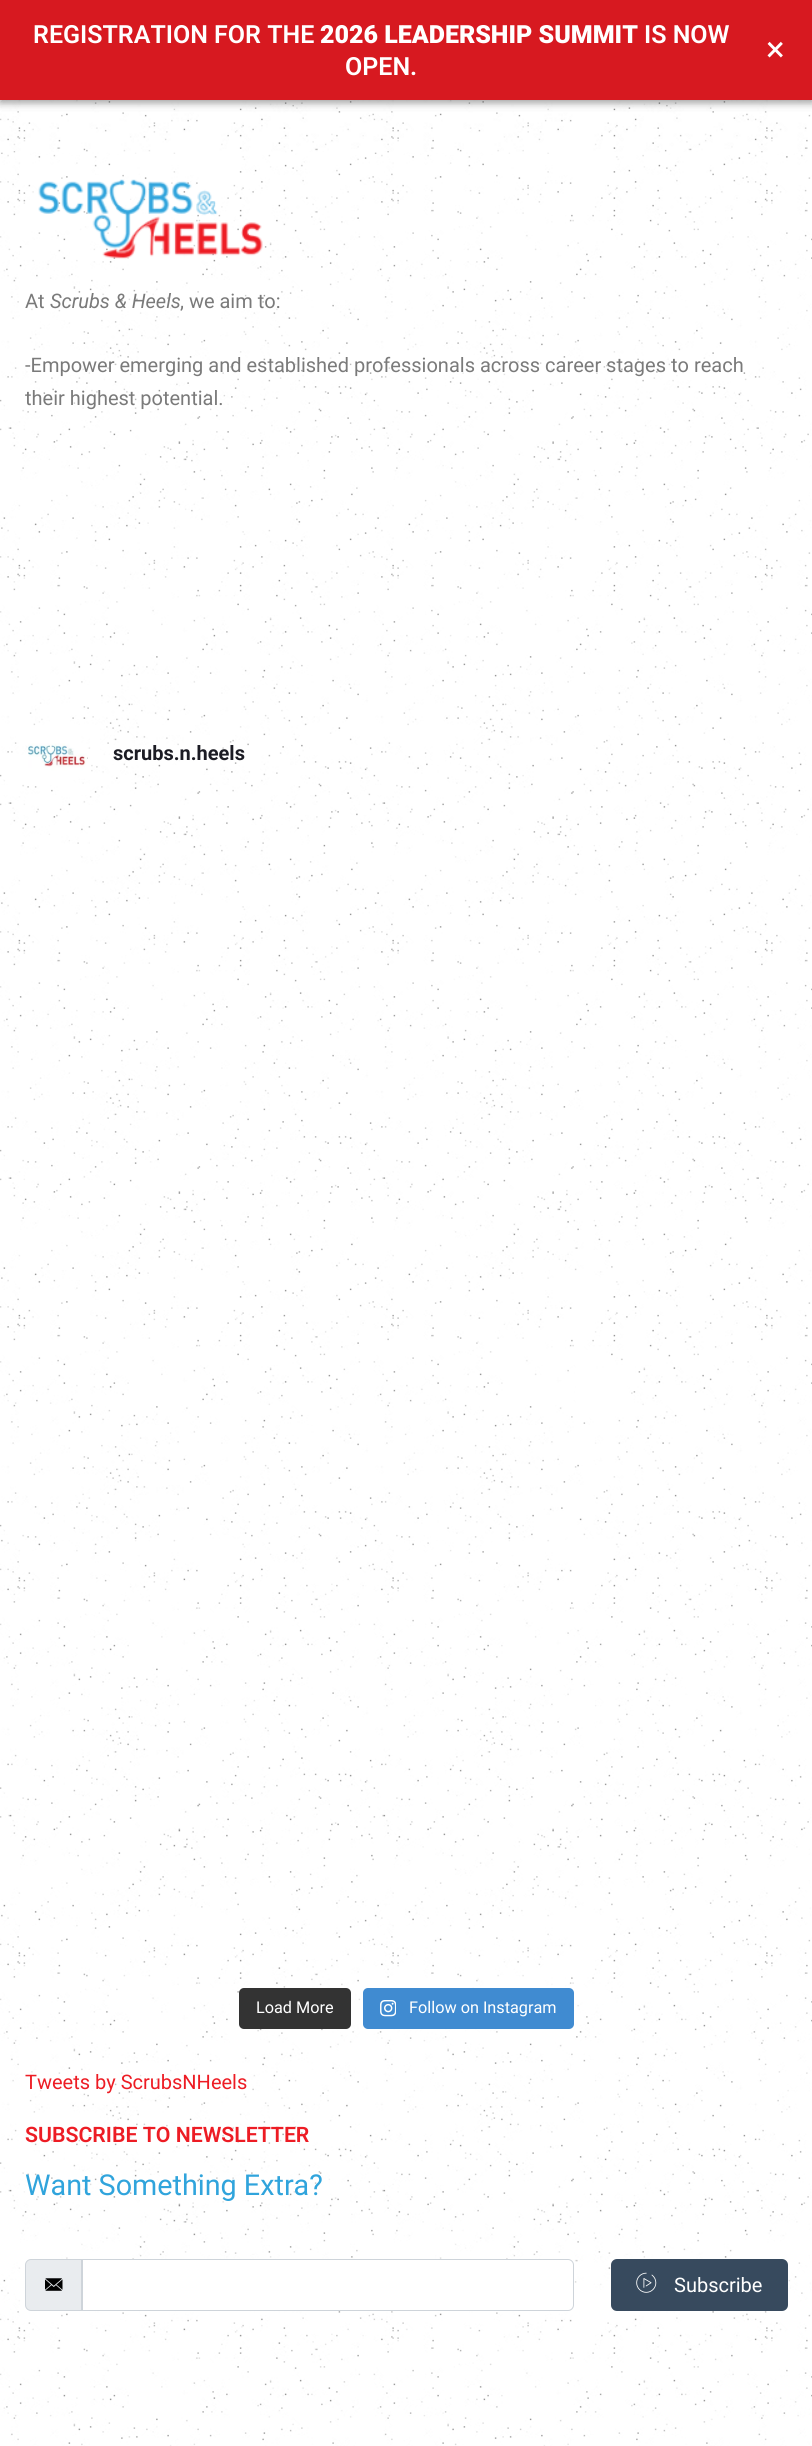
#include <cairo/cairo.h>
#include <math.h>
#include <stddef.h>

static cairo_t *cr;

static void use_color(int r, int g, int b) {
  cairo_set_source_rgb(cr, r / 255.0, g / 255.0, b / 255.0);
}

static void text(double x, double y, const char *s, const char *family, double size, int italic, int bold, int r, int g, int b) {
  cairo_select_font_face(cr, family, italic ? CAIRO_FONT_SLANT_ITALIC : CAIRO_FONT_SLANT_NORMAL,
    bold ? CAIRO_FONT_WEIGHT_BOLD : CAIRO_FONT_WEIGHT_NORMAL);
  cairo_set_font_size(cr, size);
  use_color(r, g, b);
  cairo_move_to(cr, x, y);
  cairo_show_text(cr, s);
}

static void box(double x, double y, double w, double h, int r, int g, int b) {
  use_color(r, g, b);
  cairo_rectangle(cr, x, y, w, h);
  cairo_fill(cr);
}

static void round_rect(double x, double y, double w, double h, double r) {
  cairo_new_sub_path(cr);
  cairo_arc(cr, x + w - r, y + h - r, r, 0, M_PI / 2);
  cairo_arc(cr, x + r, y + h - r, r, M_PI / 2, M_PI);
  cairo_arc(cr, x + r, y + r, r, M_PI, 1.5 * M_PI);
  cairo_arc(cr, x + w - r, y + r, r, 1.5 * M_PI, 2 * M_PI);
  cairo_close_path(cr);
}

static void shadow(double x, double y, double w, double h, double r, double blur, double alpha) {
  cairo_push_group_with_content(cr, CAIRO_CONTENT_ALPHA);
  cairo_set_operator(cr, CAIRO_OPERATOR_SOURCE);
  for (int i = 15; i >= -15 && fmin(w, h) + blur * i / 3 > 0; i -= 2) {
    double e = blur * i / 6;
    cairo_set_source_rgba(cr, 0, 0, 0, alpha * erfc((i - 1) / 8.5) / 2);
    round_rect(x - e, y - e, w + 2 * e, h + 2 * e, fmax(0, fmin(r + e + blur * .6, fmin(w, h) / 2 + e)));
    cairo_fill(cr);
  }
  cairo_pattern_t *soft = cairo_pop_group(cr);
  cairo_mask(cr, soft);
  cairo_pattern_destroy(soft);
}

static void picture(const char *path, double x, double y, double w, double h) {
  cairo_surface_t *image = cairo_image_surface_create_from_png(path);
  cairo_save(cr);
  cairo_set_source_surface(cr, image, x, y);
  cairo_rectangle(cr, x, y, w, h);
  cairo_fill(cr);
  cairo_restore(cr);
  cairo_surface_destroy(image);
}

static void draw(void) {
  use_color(255, 255, 255);
  cairo_paint(cr);
  picture("img_01.png", 0, 100, 811, 53);
  use_color(0, 0, 0);
  shadow(0, 3, 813, 100, 0, 4, 0.2);
  shadow(0, 3, 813, 100, 0, 4, 0.2);
  box(0, 0, 812, 100, 215, 25, 32);
  picture("img_02.png", 0, 152, 812, 2294);
  picture("img_03.png", 38, 179, 225, 80);
  picture("img_04.png", 28, 743, 60, 36);
  picture("img_05.png", 744, 842, 28, 2);
  picture("img_06.png", 356, 1221, 18, 18);
  cairo_save(cr);
  cairo_rectangle(cr, 576, 1361, 53, 60);
  cairo_clip(cr);
  use_color(255, 255, 255);
  cairo_new_path(cr);
  cairo_move_to(cr, 626, 1386);
  cairo_line_to(cr, 585, 1362);
  cairo_curve_to(cr, 581, 1360, 576, 1362, 576, 1367);
  cairo_line_to(cr, 576, 1416);
  cairo_curve_to(cr, 576, 1420, 581, 1423, 585, 1420);
  cairo_line_to(cr, 626, 1396);
  cairo_curve_to(cr, 630, 1394, 630, 1389, 626, 1386);
  cairo_close_path(cr);
  cairo_fill(cr);
  cairo_restore(cr);
  use_color(51, 51, 51);
  round_rect(239, 1988, 112, 41, 5);
  cairo_fill(cr);
  use_color(64, 139, 209);
  round_rect(363, 1988, 211, 41, 5);
  cairo_fill(cr);
  picture("img_07.png", 380, 2000, 16, 17);
  use_color(233, 236, 239);
  cairo_new_path(cr);
  cairo_move_to(cr, 31, 2259.5);
  cairo_line_to(cr, 82.5, 2259.5);
  cairo_line_to(cr, 82.5, 2310.5);
  cairo_line_to(cr, 31, 2310.5);
  cairo_curve_to(cr, 28, 2310.5, 25.5, 2308, 25.5, 2305);
  cairo_line_to(cr, 25.5, 2265);
  cairo_curve_to(cr, 25.5, 2262, 28, 2259.5, 31, 2259.5);
  cairo_close_path(cr);
  cairo_fill_preserve(cr);
  use_color(206, 212, 218);
  cairo_set_line_width(cr, 1);
  cairo_stroke(cr);
  picture("img_08.png", 45, 2278, 18, 13);
  use_color(255, 255, 255);
  cairo_new_path(cr);
  cairo_move_to(cr, 83, 2260);
  cairo_line_to(cr, 568, 2260);
  cairo_curve_to(cr, 571, 2260, 573, 2262, 573, 2265);
  cairo_line_to(cr, 573, 2305);
  cairo_curve_to(cr, 573, 2308, 571, 2310, 568, 2310);
  cairo_line_to(cr, 83, 2310);
  cairo_close_path(cr);
  cairo_fill(cr);
  cairo_new_path(cr);
  cairo_move_to(cr, 81.5, 2259.5);
  cairo_line_to(cr, 568, 2259.5);
  cairo_curve_to(cr, 571, 2259.5, 573.5, 2262, 573.5, 2265);
  cairo_line_to(cr, 573.5, 2305);
  cairo_curve_to(cr, 573.5, 2308, 571, 2310.5, 568, 2310.5);
  cairo_line_to(cr, 81.5, 2310.5);
  cairo_close_path(cr);
  use_color(206, 212, 218);
  cairo_stroke(cr);
  use_color(55, 74, 94);
  round_rect(611, 2259, 177, 52, 6);
  cairo_fill(cr);
  picture("img_09.png", 636, 2272, 21, 21);
  text(33, 43, "REGISTRATION FOR THE", "Roboto SemiBold", 25, 0, 0, 255, 255, 255);
  text(320, 43, "2026 LEADERSHIP SUMMIT", "Roboto Black", 25, 0, 0, 255, 255, 255);
  text(644, 43, "IS NOW", "Roboto SemiBold", 25, 0, 0, 255, 255, 255);
  text(345, 75, "OPEN.", "Roboto SemiBold", 25, 0, 0, 255, 255, 255);
  text(766, 61, "×", "Roboto", 35, 0, 0, 255, 255, 255);
  text(25, 308, "At", "Roboto", 20, 0, 0, 122, 122, 122);
  text(50, 308, "Scrubs & Heels", "Roboto", 20, 1, 0, 122, 122, 122);
  text(180, 308, ", we aim to:", "Roboto", 20, 0, 0, 122, 122, 122);
  text(25, 372, "-Empower emerging and established professionals across career stages to reach", "Roboto", 20, 0, 0, 122, 122, 122);
  text(25, 405, "their highest potential.", "Roboto", 20, 0, 0, 122, 122, 122);
  text(113, 760, "scrubs.n.heels", "Roboto", 20, 0, 1, 28, 28, 36);
  text(256, 2013, "Load More", "Roboto", 16.25, 0, 0, 255, 255, 255);
  text(409, 2013, "Follow on Instagram", "Roboto", 16.25, 0, 0, 255, 255, 255);
  text(25, 2089, "Tweets by ScrubsNHeels", "Roboto", 20, 0, 0, 237, 28, 36);
  text(25, 2142, "SUBSCRIBE TO NEWSLETTER", "Roboto SemiBold", 21.25, 0, 0, 237, 28, 36);
  text(25, 2195, "Want Something Extra?", "Roboto", 28.75, 0, 0, 48, 164, 220);
  text(674, 2292, "Subscribe", "Roboto", 20, 0, 0, 255, 255, 255);
}

int main(void) {
  cairo_surface_t *surface = cairo_image_surface_create(CAIRO_FORMAT_RGB24, 812, 2446);
  cr = cairo_create(surface);
  cairo_font_options_t *options = cairo_font_options_create();
  cairo_font_options_set_hint_metrics(options, CAIRO_HINT_METRICS_OFF);
  cairo_font_options_set_hint_style(options, CAIRO_HINT_STYLE_NONE);
  cairo_set_font_options(cr, options);
  cairo_set_miter_limit(cr, 4);
  draw();
  cairo_surface_write_to_png(surface, "out.png");
  cairo_font_options_destroy(options);
  cairo_destroy(cr);
  cairo_surface_destroy(surface);
  return 0;
}
